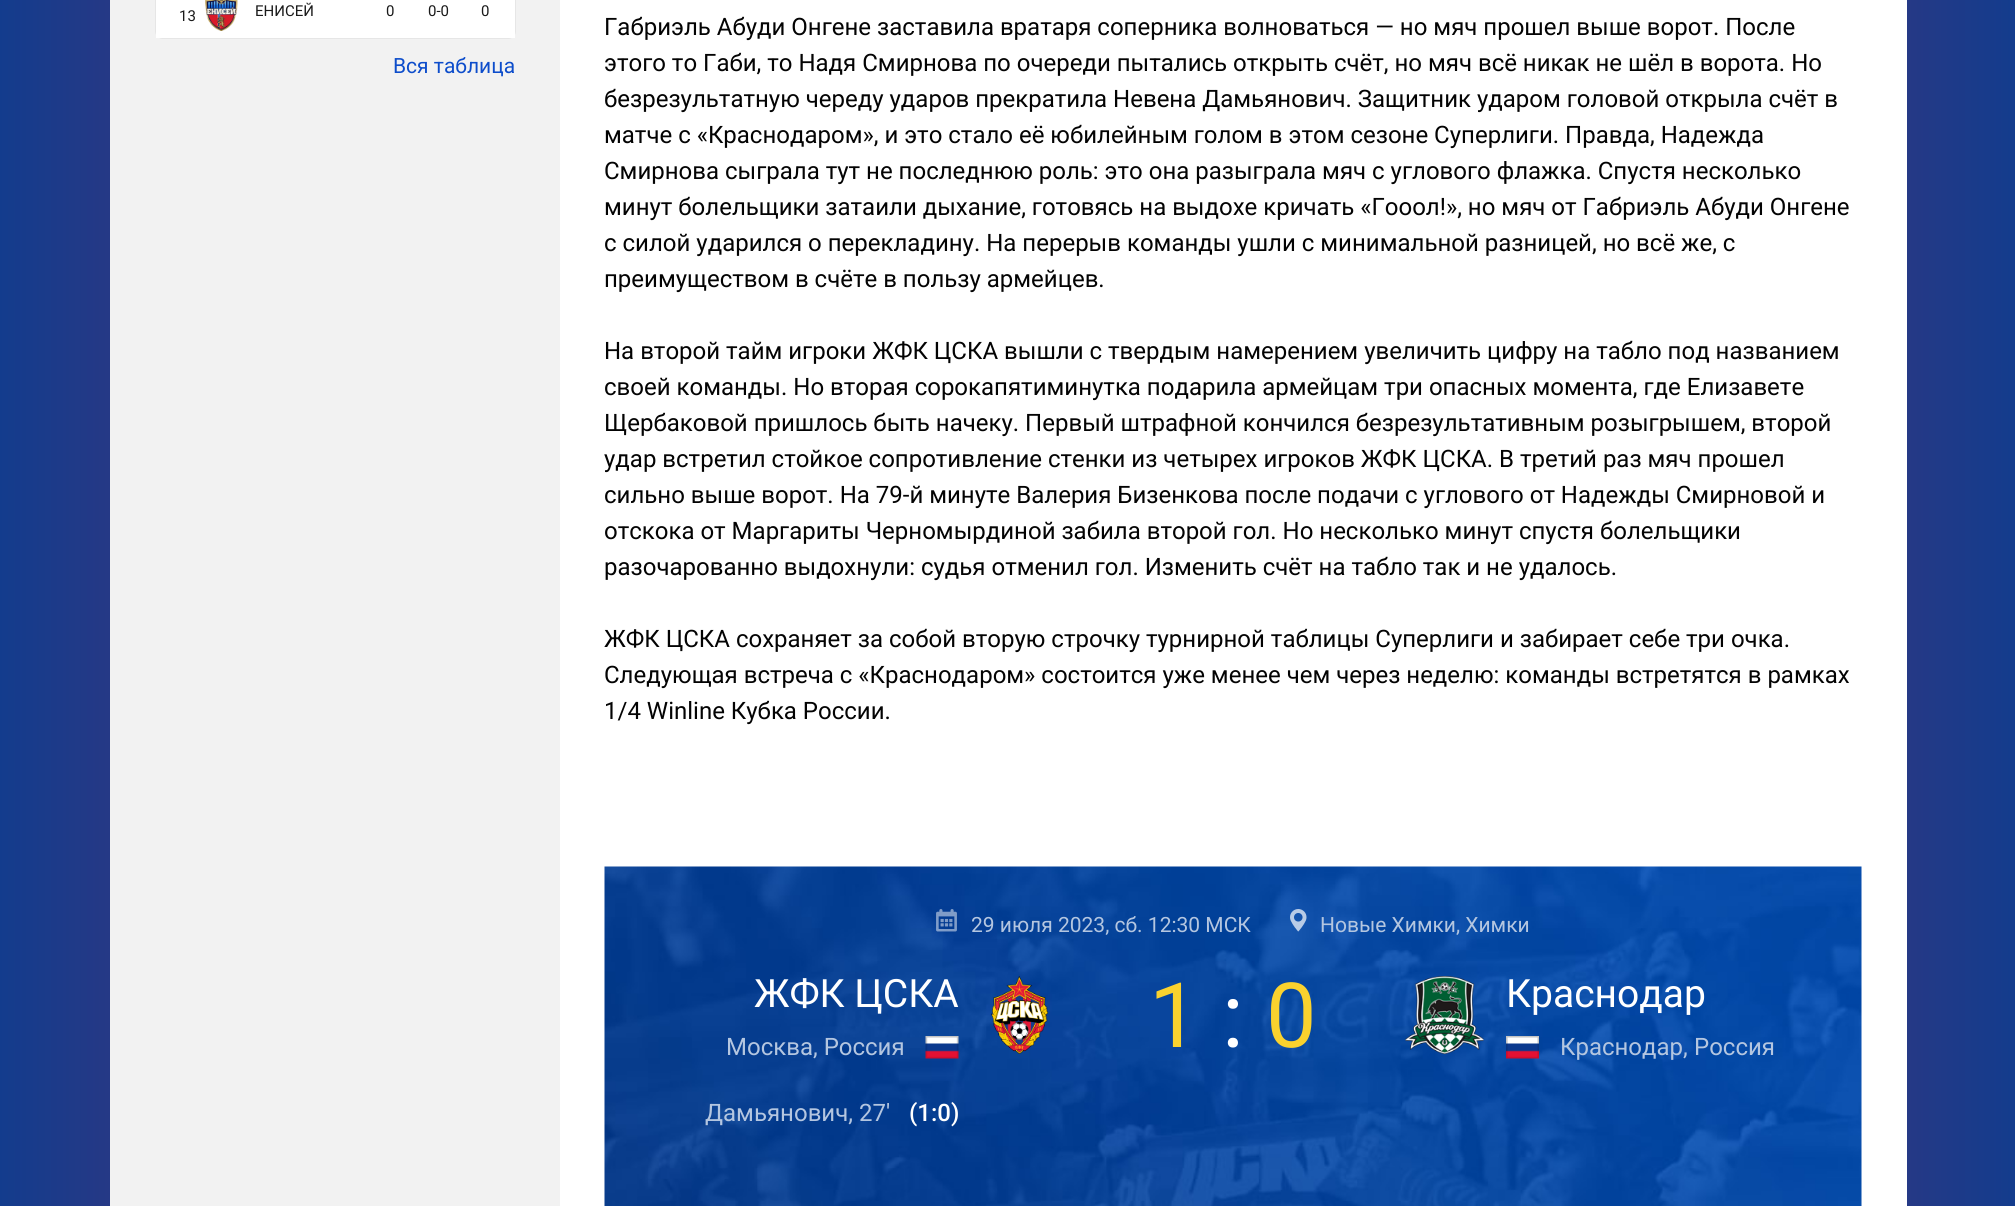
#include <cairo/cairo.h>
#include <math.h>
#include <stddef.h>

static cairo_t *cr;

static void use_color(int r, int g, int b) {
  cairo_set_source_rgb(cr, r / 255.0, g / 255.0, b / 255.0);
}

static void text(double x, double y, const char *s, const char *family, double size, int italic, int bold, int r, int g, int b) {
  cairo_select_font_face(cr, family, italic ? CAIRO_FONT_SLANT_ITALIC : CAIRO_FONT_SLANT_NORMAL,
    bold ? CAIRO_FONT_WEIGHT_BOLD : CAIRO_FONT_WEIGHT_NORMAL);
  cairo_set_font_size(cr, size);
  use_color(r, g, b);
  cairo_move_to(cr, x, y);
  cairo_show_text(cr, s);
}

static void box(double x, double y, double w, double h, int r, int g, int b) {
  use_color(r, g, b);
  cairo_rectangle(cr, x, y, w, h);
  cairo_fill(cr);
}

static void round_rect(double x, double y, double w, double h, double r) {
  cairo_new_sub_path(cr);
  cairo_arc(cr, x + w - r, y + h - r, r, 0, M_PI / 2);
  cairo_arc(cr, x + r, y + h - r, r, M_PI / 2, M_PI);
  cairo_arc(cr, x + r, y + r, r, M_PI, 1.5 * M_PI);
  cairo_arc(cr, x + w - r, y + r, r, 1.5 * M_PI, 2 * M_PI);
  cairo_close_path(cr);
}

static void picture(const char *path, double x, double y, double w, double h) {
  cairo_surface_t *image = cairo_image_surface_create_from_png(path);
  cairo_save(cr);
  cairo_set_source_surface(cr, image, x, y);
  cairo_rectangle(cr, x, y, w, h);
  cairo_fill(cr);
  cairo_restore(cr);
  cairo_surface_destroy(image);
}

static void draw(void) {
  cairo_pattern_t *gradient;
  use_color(255, 255, 255);
  cairo_paint(cr);
  gradient = cairo_pattern_create_linear(0, 603, 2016, 603);
  cairo_pattern_add_color_stop_rgba(gradient, 0, 0.075, 0.235, 0.553, 1);
  cairo_pattern_add_color_stop_rgba(gradient, 0.5, 0.729, 0.125, 0.282, 1);
  cairo_pattern_add_color_stop_rgba(gradient, 1, 0.075, 0.235, 0.553, 1);
  cairo_set_source(cr, gradient);
  cairo_pattern_destroy(gradient);
  cairo_rectangle(cr, 0, 0, 2015, 1206);
  cairo_fill(cr);
  box(110, 0, 450, 1206, 242, 242, 242);
  round_rect(156, -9, 359, 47, 7);
  use_color(230, 230, 230);
  cairo_stroke(cr);
  box(156, 0, 359, 38, 255, 255, 255);
  picture("img_01.png", 205, 0, 33, 31);
  box(560, 0, 1347, 1206, 255, 255, 255);
  picture("img_02.png", 604, 866, 1258, 340);
  picture("img_03.png", 936, 909, 21, 23);
  picture("img_04.png", 1290, 909, 17, 23);
  picture("img_05.png", 925, 1036, 34, 23);
  picture("img_06.png", 991, 976, 57, 78);
  picture("img_07.png", 1405, 976, 79, 78);
  picture("img_08.png", 1506, 1036, 33, 23);
  text(179, 21, "13", "Roboto", 15, 0, 0, 26, 26, 26);
  text(255, 16, "ЕНИСЕЙ", "Roboto", 15, 0, 0, 26, 26, 26);
  text(386, 16, "0", "Roboto", 15, 0, 0, 26, 26, 26);
  text(428, 16, "0-0", "Roboto", 15, 0, 0, 26, 26, 26);
  text(481, 16, "0", "Roboto", 15, 0, 0, 26, 26, 26);
  text(393, 73, "Вся таблица", "Roboto", 21, 0, 0, 13, 77, 203);
  text(604, 35, "Габриэль Абуди Онгене заставила вратаря соперника волноваться — но мяч прошел выше ворот. После", "Roboto", 24, 0, 0, 3, 3, 3);
  text(604, 71, "этого то Габи, то Надя Смирнова по очереди пытались открыть счёт, но мяч всё никак не шёл в ворота. Но", "Roboto", 24, 0, 0, 3, 3, 3);
  text(604, 107, "безрезультатную череду ударов прекратила Невена Дамьянович. Защитник ударом головой открыла счёт в", "Roboto", 24, 0, 0, 3, 3, 3);
  text(604, 143, "матче с «Краснодаром», и это стало её юбилейным голом в этом сезоне Суперлиги. Правда, Надежда", "Roboto", 24, 0, 0, 3, 3, 3);
  text(604, 179, "Смирнова сыграла тут не последнюю роль: это она разыграла мяч с углового флажка. Спустя несколько", "Roboto", 24, 0, 0, 3, 3, 3);
  text(604, 215, "минут болельщики затаили дыхание, готовясь на выдохе кричать «Гооол!», но мяч от Габриэль Абуди Онгене", "Roboto", 24, 0, 0, 3, 3, 3);
  text(604, 251, "с силой ударился о перекладину. На перерыв команды ушли с минимальной разницей, но всё же, с", "Roboto", 24, 0, 0, 3, 3, 3);
  text(604, 287, "преимуществом в счёте в пользу армейцев.", "Roboto", 24, 0, 0, 3, 3, 3);
  text(604, 359, "На второй тайм игроки ЖФК ЦСКА вышли с твердым намерением увеличить цифру на табло под названием", "Roboto", 24, 0, 0, 3, 3, 3);
  text(604, 395, "своей команды. Но вторая сорокапятиминутка подарила армейцам три опасных момента, где Елизавете", "Roboto", 24, 0, 0, 3, 3, 3);
  text(604, 431, "Щербаковой пришлось быть начеку. Первый штрафной кончился безрезультативным розыгрышем, второй", "Roboto", 24, 0, 0, 3, 3, 3);
  text(604, 467, "удар встретил стойкое сопротивление стенки из четырех игроков ЖФК ЦСКА. В третий раз мяч прошел", "Roboto", 24, 0, 0, 3, 3, 3);
  text(604, 503, "сильно выше ворот. На 79-й минуте Валерия Бизенкова после подачи с углового от Надежды Смирновой и", "Roboto", 24, 0, 0, 3, 3, 3);
  text(604, 539, "отскока от Маргариты Черномырдиной забила второй гол. Но несколько минут спустя болельщики", "Roboto", 24, 0, 0, 3, 3, 3);
  text(604, 575, "разочарованно выдохнули: судья отменил гол. Изменить счёт на табло так и не удалось.", "Roboto", 24, 0, 0, 3, 3, 3);
  text(604, 647, "ЖФК ЦСКА сохраняет за собой вторую строчку турнирной таблицы Суперлиги и забирает себе три очка.", "Roboto", 24, 0, 0, 3, 3, 3);
  text(604, 683, "Следующая встреча с «Краснодаром» состоится уже менее чем через неделю: команды встретятся в рамках", "Roboto", 24, 0, 0, 3, 3, 3);
  text(604, 719, "1/4 Winline Кубка России.", "Roboto", 24, 0, 0, 3, 3, 3);
  text(971, 932, "29 июля 2023, сб. 12:30 МСК", "Roboto", 21, 0, 0, 180, 198, 224);
  text(1320, 932, "Новые Химки, Химки", "Roboto", 21, 0, 0, 180, 198, 224);
  text(754, 1007, "ЖФК ЦСКА", "Roboto", 39, 0, 0, 255, 255, 255);
  text(726, 1055, "Москва, Россия", "Roboto", 24, 0, 0, 180, 198, 224);
  text(1149, 1047, "1", "Roboto", 90, 0, 0, 250, 210, 46);
  text(1222, 1047, ":", "Roboto", 90, 0, 0, 255, 255, 255);
  text(1266, 1047, "0", "Roboto", 90, 0, 0, 250, 210, 46);
  text(1506, 1007, "Краснодар", "Roboto", 39, 0, 0, 255, 255, 255);
  text(1560, 1055, "Краснодар,", "Roboto", 24, 0, 0, 180, 198, 224);
  text(1694, 1055, "Россия", "Roboto", 24, 0, 0, 180, 198, 224);
  text(705, 1121, "Дамьянович, 27′", "Roboto", 24, 0, 0, 180, 198, 224);
  text(909, 1121, "(1:0)", "Roboto Medium", 24, 0, 0, 255, 255, 255);
}

int main(void) {
  cairo_surface_t *surface = cairo_image_surface_create(CAIRO_FORMAT_RGB24, 2015, 1206);
  cr = cairo_create(surface);
  cairo_font_options_t *options = cairo_font_options_create();
  cairo_font_options_set_hint_metrics(options, CAIRO_HINT_METRICS_OFF);
  cairo_font_options_set_hint_style(options, CAIRO_HINT_STYLE_NONE);
  cairo_set_font_options(cr, options);
  cairo_set_miter_limit(cr, 4);
  draw();
  cairo_surface_write_to_png(surface, "out.png");
  cairo_font_options_destroy(options);
  cairo_destroy(cr);
  cairo_surface_destroy(surface);
  return 0;
}
